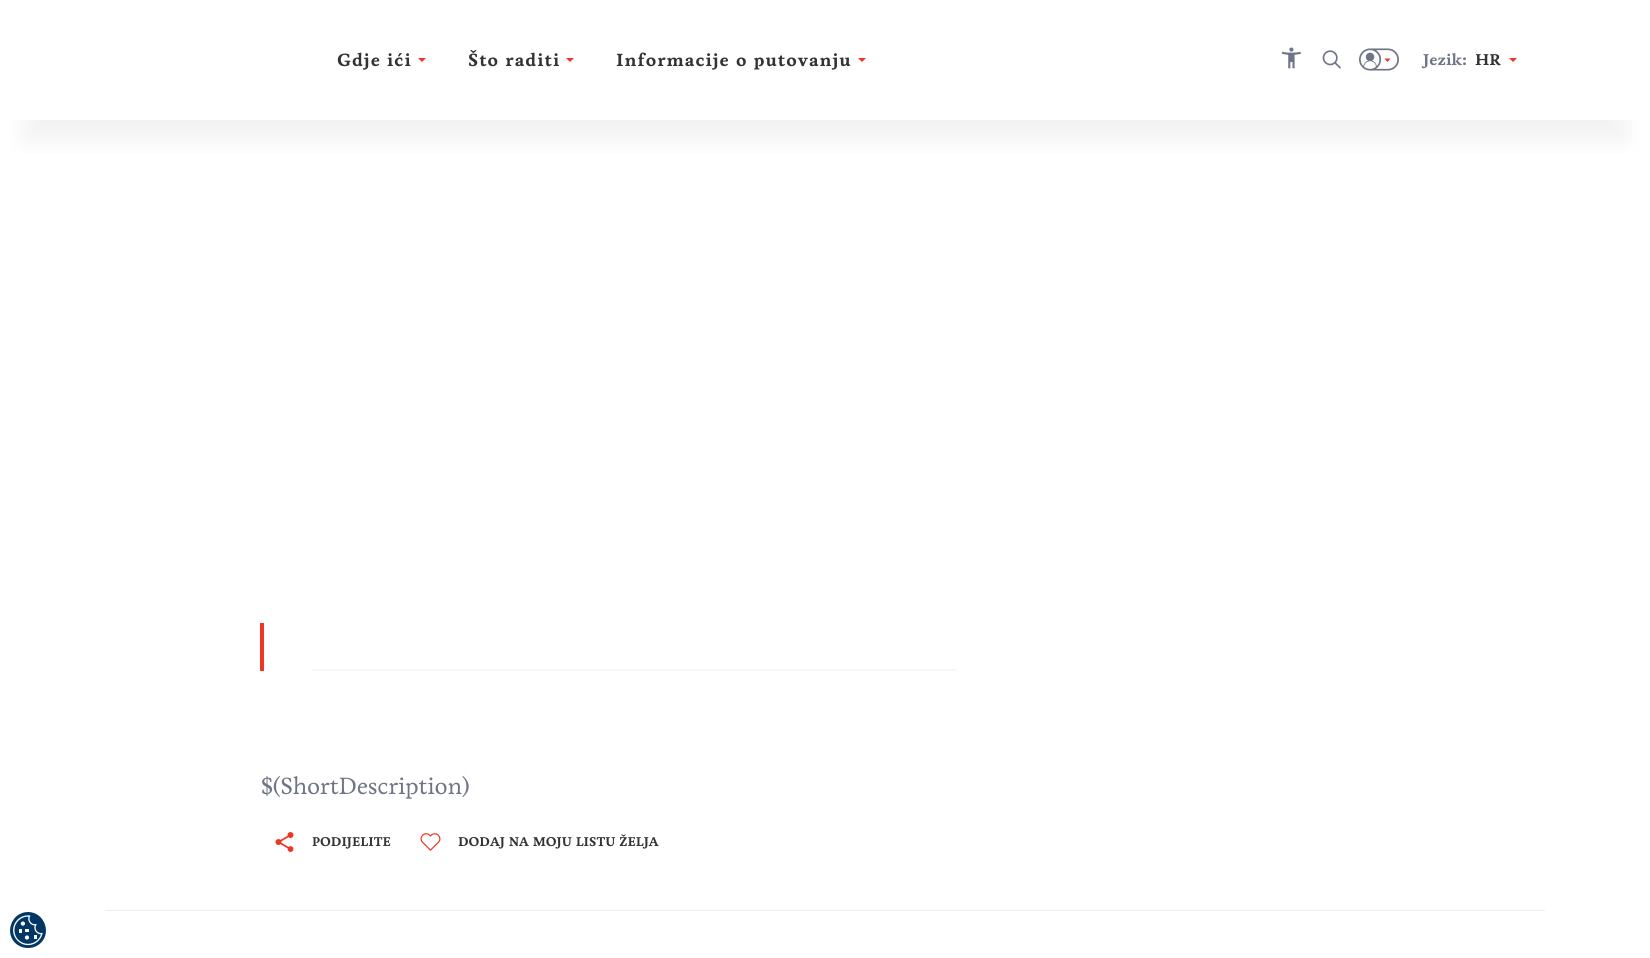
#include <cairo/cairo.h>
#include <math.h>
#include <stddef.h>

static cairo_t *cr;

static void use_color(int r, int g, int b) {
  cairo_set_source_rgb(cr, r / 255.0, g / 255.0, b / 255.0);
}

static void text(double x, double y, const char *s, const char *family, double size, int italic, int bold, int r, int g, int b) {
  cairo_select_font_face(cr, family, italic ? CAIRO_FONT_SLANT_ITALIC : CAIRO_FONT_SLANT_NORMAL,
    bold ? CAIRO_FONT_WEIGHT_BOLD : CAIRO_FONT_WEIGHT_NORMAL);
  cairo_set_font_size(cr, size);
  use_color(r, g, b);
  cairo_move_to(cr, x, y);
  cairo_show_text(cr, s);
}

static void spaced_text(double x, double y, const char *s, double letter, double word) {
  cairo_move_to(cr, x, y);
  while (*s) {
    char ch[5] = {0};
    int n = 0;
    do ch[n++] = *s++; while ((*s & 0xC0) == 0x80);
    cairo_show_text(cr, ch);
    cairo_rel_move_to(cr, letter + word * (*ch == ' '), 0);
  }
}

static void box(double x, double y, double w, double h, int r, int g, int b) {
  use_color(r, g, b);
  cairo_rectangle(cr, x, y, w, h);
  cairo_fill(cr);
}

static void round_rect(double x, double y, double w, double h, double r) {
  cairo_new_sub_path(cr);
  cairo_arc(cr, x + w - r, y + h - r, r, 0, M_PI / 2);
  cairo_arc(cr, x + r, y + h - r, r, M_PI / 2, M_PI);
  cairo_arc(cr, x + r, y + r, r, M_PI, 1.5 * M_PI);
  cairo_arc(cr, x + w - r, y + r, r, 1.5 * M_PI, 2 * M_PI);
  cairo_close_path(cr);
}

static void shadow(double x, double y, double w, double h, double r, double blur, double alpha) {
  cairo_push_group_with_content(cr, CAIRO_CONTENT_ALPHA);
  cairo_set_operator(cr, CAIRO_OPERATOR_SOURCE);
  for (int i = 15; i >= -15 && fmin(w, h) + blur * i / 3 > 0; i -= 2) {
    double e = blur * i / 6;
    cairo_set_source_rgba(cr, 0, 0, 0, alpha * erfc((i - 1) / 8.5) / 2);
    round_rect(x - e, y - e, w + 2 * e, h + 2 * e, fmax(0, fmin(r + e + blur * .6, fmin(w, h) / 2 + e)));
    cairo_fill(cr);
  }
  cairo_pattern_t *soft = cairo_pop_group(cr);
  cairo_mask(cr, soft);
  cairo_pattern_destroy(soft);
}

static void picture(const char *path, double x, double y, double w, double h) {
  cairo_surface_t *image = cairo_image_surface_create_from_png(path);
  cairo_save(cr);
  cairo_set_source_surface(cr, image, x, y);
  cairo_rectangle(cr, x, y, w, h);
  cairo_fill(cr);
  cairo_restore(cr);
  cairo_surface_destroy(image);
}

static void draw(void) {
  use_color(255, 255, 255);
  cairo_paint(cr);
  cairo_save(cr);
  cairo_rectangle(cr, 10, 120, 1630, 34);
  cairo_clip(cr);
  use_color(176, 176, 176);
  shadow(24, 68, 1602, 72, 0, 12, 0.17);
  cairo_restore(cr);
  use_color(239, 53, 36);
  cairo_new_path(cr);
  cairo_move_to(cr, 418, 58);
  cairo_line_to(cr, 426, 58);
  cairo_line_to(cr, 422, 62);
  cairo_close_path(cr);
  cairo_fill(cr);
  cairo_new_path(cr);
  cairo_move_to(cr, 566, 58);
  cairo_line_to(cr, 574, 58);
  cairo_line_to(cr, 570, 62);
  cairo_close_path(cr);
  cairo_fill(cr);
  cairo_new_path(cr);
  cairo_move_to(cr, 858, 58);
  cairo_line_to(cr, 866, 58);
  cairo_line_to(cr, 862, 62);
  cairo_close_path(cr);
  cairo_fill(cr);
  picture("img_01.png", 1281, 47, 20, 22);
  picture("img_02.png", 1322, 50, 19, 19);
  cairo_new_path(cr);
  cairo_move_to(cr, 1387.5, 62);
  cairo_line_to(cr, 1390.5, 58.5);
  cairo_line_to(cr, 1384.5, 58.5);
  cairo_close_path(cr);
  cairo_fill(cr);
  picture("img_03.png", 1359, 48, 40, 23);
  cairo_new_path(cr);
  cairo_move_to(cr, 1509, 58);
  cairo_line_to(cr, 1517, 58);
  cairo_line_to(cr, 1513, 62);
  cairo_close_path(cr);
  cairo_fill(cr);
  box(260, 623, 4, 48, 239, 53, 36);
  box(312, 669, 644, 2, 245, 245, 245);
  picture("img_04.png", 275, 832, 19, 20);
  picture("img_05.png", 420, 833, 21, 18);
  box(105, 910, 1440, 1, 239, 239, 242);
  use_color(0, 55, 100);
  cairo_new_path(cr);
  cairo_move_to(cr, 28, 912);
  cairo_curve_to(cr, 45, 912, 52.5, 934.5, 39, 944.5);
  cairo_curve_to(cr, 35.5, 947, 32, 948, 28, 948);
  cairo_curve_to(cr, 24, 948, 20.5, 947, 17, 944.5);
  cairo_curve_to(cr, 3.5, 934.5, 11, 912, 28, 912);
  cairo_close_path(cr);
  cairo_fill(cr);
  picture("img_06.png", 13, 915, 30, 31);
  picture("img_07.png", 20, 921, 5, 5);
  box(19, 929, 3, 4, 255, 255, 255);
  box(25, 929, 4, 3, 255, 255, 255);
  picture("img_08.png", 24, 935, 6, 5);
  box(34, 935, 3, 4, 255, 255, 255);
  cairo_select_font_face(cr, "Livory", CAIRO_FONT_SLANT_NORMAL, CAIRO_FONT_WEIGHT_BOLD);
  cairo_set_font_size(cr, 18);
  use_color(51, 51, 51);
  spaced_text(337, 66, "Gdje ići", 1, 0);
  spaced_text(468, 66, "Što raditi", 1, 0);
  spaced_text(616, 66, "Informacije o putovanju", 1, 0);
  text(1423, 65, "Jezik:", "Livory", 16, 0, 1, 111, 116, 134);
  text(1475, 65, "HR", "Livory", 16, 0, 1, 51, 51, 51);
  cairo_select_font_face(cr, "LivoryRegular", CAIRO_FONT_SLANT_NORMAL, CAIRO_FONT_WEIGHT_NORMAL);
  cairo_set_font_size(cr, 24);
  use_color(111, 116, 134);
  spaced_text(261, 794, "$(ShortDescription)", -0.25, 0);
  text(312, 846, "PODIJELITE", "Livory", 13, 0, 1, 51, 51, 51);
  text(458, 846, "DODAJ NA MOJU LISTU ŽELJA", "Livory", 13, 0, 1, 51, 51, 51);
}

int main(void) {
  cairo_surface_t *surface = cairo_image_surface_create(CAIRO_FORMAT_RGB24, 1650, 958);
  cr = cairo_create(surface);
  cairo_font_options_t *options = cairo_font_options_create();
  cairo_font_options_set_hint_metrics(options, CAIRO_HINT_METRICS_OFF);
  cairo_font_options_set_hint_style(options, CAIRO_HINT_STYLE_NONE);
  cairo_set_font_options(cr, options);
  cairo_set_miter_limit(cr, 4);
  draw();
  cairo_surface_write_to_png(surface, "out.png");
  cairo_font_options_destroy(options);
  cairo_destroy(cr);
  cairo_surface_destroy(surface);
  return 0;
}
